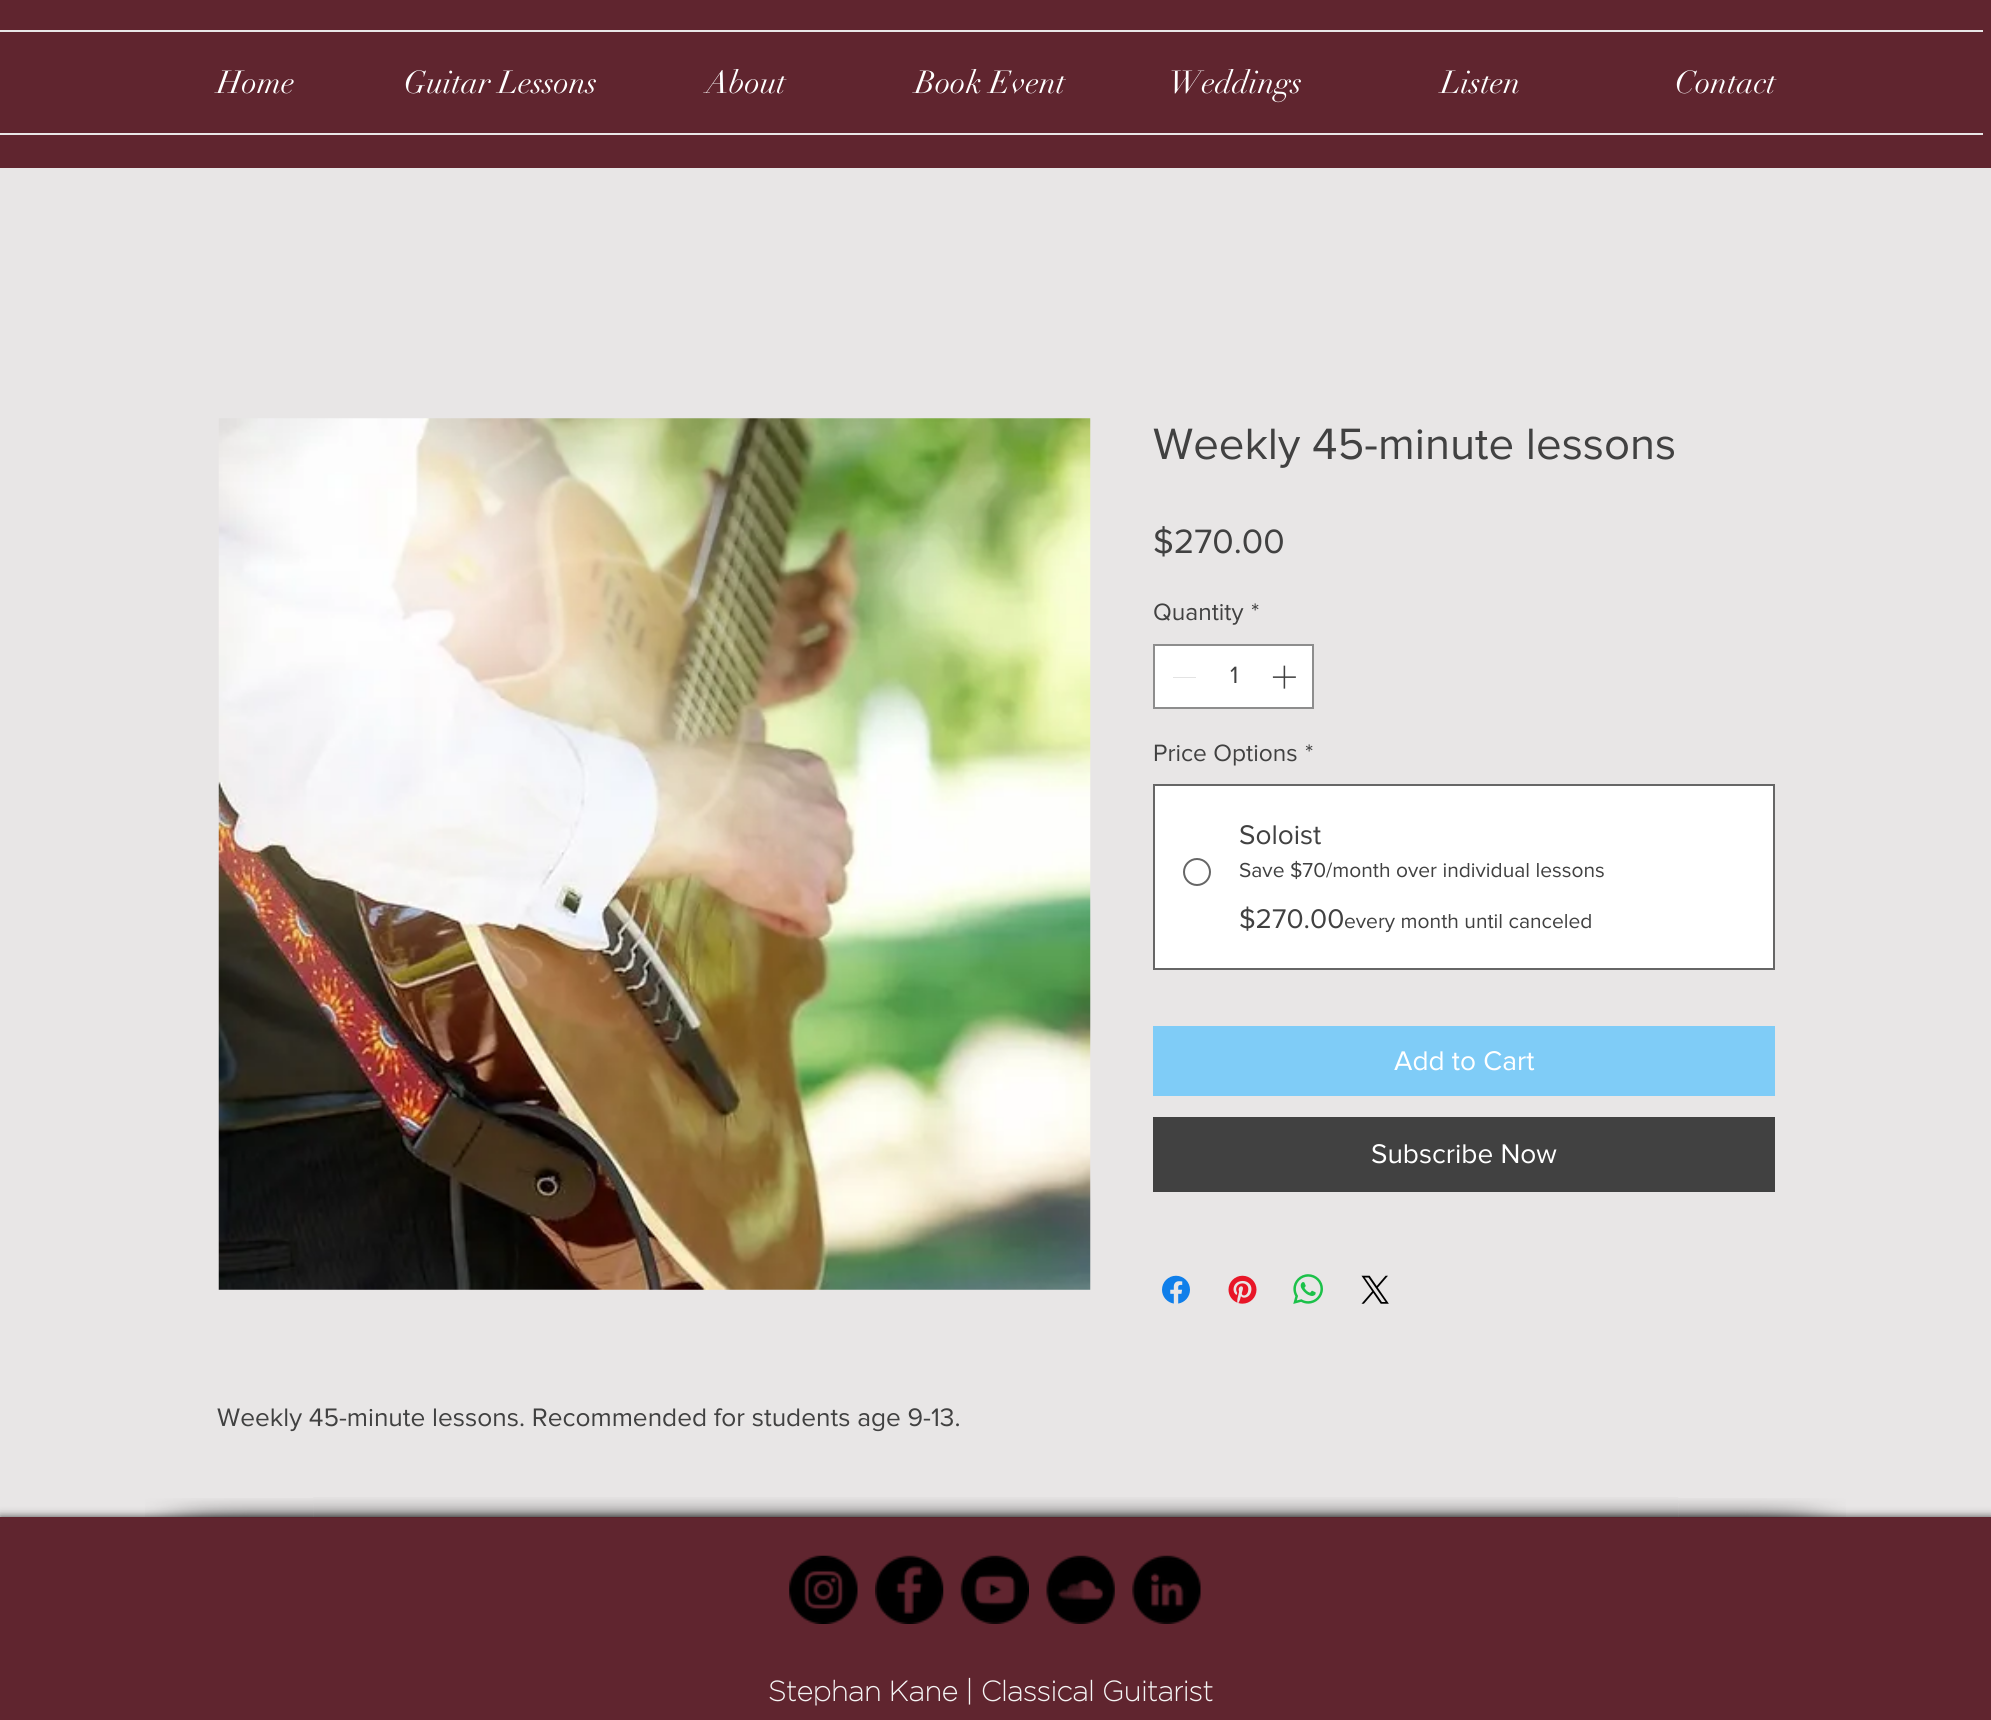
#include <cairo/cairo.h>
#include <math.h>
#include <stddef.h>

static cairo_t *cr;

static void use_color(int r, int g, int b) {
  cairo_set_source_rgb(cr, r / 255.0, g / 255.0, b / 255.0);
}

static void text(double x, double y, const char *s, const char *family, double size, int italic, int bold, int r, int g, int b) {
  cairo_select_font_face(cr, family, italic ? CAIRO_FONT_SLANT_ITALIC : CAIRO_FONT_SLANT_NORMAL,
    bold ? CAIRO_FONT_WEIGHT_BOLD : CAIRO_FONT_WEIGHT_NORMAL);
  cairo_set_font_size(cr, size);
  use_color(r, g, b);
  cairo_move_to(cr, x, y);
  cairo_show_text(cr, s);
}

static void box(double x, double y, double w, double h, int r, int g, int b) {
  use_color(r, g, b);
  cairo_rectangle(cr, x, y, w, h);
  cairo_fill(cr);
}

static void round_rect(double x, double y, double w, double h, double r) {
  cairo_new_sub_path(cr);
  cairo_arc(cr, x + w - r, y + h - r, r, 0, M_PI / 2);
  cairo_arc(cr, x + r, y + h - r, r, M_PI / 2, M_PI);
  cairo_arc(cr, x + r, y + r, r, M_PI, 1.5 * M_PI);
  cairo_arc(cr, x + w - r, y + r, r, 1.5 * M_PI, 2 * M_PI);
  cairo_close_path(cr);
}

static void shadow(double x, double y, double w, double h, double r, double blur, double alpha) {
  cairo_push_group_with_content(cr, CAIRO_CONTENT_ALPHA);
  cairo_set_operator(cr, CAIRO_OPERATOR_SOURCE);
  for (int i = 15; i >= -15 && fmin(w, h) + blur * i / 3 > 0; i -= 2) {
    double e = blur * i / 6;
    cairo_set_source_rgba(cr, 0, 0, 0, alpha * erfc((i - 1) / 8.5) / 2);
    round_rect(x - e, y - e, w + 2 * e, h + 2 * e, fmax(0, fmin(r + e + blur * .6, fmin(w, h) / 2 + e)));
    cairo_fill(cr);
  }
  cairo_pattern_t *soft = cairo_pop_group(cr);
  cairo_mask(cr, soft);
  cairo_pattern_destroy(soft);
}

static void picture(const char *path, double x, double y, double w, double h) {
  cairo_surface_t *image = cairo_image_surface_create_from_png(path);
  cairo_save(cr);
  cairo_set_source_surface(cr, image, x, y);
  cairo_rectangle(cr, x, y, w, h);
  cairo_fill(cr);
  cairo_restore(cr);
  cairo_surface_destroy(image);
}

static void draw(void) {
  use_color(232, 230, 230);
  cairo_paint(cr);
  box(0, 0, 1991, 168, 96, 37, 47);
  box(0, 30, 1983, 2, 232, 230, 230);
  box(0, 133, 1983, 2, 232, 230, 230);
  use_color(255, 255, 255);
  cairo_rectangle(cr, 1154, 645, 159, 63);
  cairo_fill_preserve(cr);
  use_color(141, 141, 141);
  cairo_stroke(cr);
  box(1173, 677, 23, 1, 227, 227, 227);
  picture("img_01.png", 1272, 665, 24, 24);
  use_color(255, 255, 255);
  cairo_rectangle(cr, 1154, 785, 620, 184);
  cairo_fill_preserve(cr);
  use_color(102, 102, 102);
  cairo_stroke(cr);
  cairo_arc(cr, 1197, 872, 13, 0, 2 * M_PI);
  cairo_stroke(cr);
  box(1153, 1026, 622, 70, 127, 204, 247);
  box(1153, 1117, 622, 75, 65, 65, 65);
  picture("img_02.png", 1162, 1275, 28, 29);
  picture("img_03.png", 1228, 1275, 29, 29);
  picture("img_04.png", 1293, 1274, 30, 30);
  picture("img_05.png", 1361, 1275, 28, 29);
  picture("img_06.png", 218, 418, 873, 872);
  use_color(0, 0, 0);
  shadow(0, 1517, 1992, 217, 0, 4.5, 0.7);
  box(0, 1517, 1991, 203, 96, 37, 47);
  picture("img_07.png", 145, 1498, 169, 20);
  picture("img_08.png", 313, 1497, 1366, 21);
  picture("img_09.png", 1678, 1498, 168, 20);
  picture("img_10.png", 789, 1555, 69, 69);
  picture("img_11.png", 875, 1555, 69, 69);
  picture("img_12.png", 960, 1555, 69, 69);
  picture("img_13.png", 1046, 1555, 69, 69);
  picture("img_14.png", 1132, 1555, 69, 69);
  text(217, 93, "Home", "didot", 31.5, 0, 0, 255, 255, 255);
  text(404, 93, "Guitar Lessons", "didot", 31.5, 0, 0, 255, 255, 255);
  text(706, 93, "About", "didot", 31.5, 0, 0, 255, 255, 255);
  text(915, 93, "Book Event", "didot", 31.5, 0, 0, 255, 255, 255);
  text(1169, 93, "Weddings", "didot", 31.5, 0, 0, 255, 255, 255);
  text(1441, 93, "Listen", "didot", 31.5, 0, 0, 255, 255, 255);
  text(1675, 93, "Contact", "didot", 31.5, 0, 0, 255, 255, 255);
  text(1153, 459, "Weekly 45-minute lessons", "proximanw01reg", 45.5, 0, 0, 65, 65, 65);
  text(1153, 553, "$270.00", "proximanw01reg", 35, 0, 0, 65, 65, 65);
  text(1153, 620, "Quantity", "proximanw01reg", 24.5, 0, 0, 65, 65, 65);
  text(1251, 620, "*", "proximanw01reg", 24.5, 0, 0, 65, 65, 65);
  text(1230, 683, "1", "proximanw01reg", 24.5, 0, 0, 65, 65, 65);
  text(1153, 761, "Price Options", "proximanw01reg", 24.5, 0, 0, 65, 65, 65);
  text(1305, 761, "*", "proximanw01reg", 24.5, 0, 0, 65, 65, 65);
  text(1239, 844, "Soloist", "proximanw01reg", 28, 0, 0, 65, 65, 65);
  text(1239, 877, "Save $70/month over individual lessons", "proximanw01reg", 21, 0, 0, 65, 65, 65);
  text(1239, 928, "$270.00", "proximanw01reg", 28, 0, 0, 65, 65, 65);
  text(1344, 928, "every month until canceled", "proximanw01reg", 21, 0, 0, 65, 65, 65);
  text(1394, 1070, "Add to Cart", "proximanw01reg", 28, 0, 0, 255, 255, 255);
  text(1371, 1163, "Subscribe Now", "proximanw01reg", 28, 0, 0, 255, 255, 255);
  text(217, 1426, "Weekly 45-minute lessons. Recommended for students age 9-13.", "proximanw01reg", 26.25, 0, 0, 65, 65, 65);
  text(768, 1701, "Stephan Kane | Classical Guitarist", "Gotham", 28, 0, 1, 245, 245, 245);
}

int main(void) {
  cairo_surface_t *surface = cairo_image_surface_create(CAIRO_FORMAT_RGB24, 1991, 1720);
  cr = cairo_create(surface);
  cairo_font_options_t *options = cairo_font_options_create();
  cairo_font_options_set_hint_metrics(options, CAIRO_HINT_METRICS_OFF);
  cairo_font_options_set_hint_style(options, CAIRO_HINT_STYLE_NONE);
  cairo_set_font_options(cr, options);
  cairo_set_miter_limit(cr, 4);
  draw();
  cairo_surface_write_to_png(surface, "out.png");
  cairo_font_options_destroy(options);
  cairo_destroy(cr);
  cairo_surface_destroy(surface);
  return 0;
}
